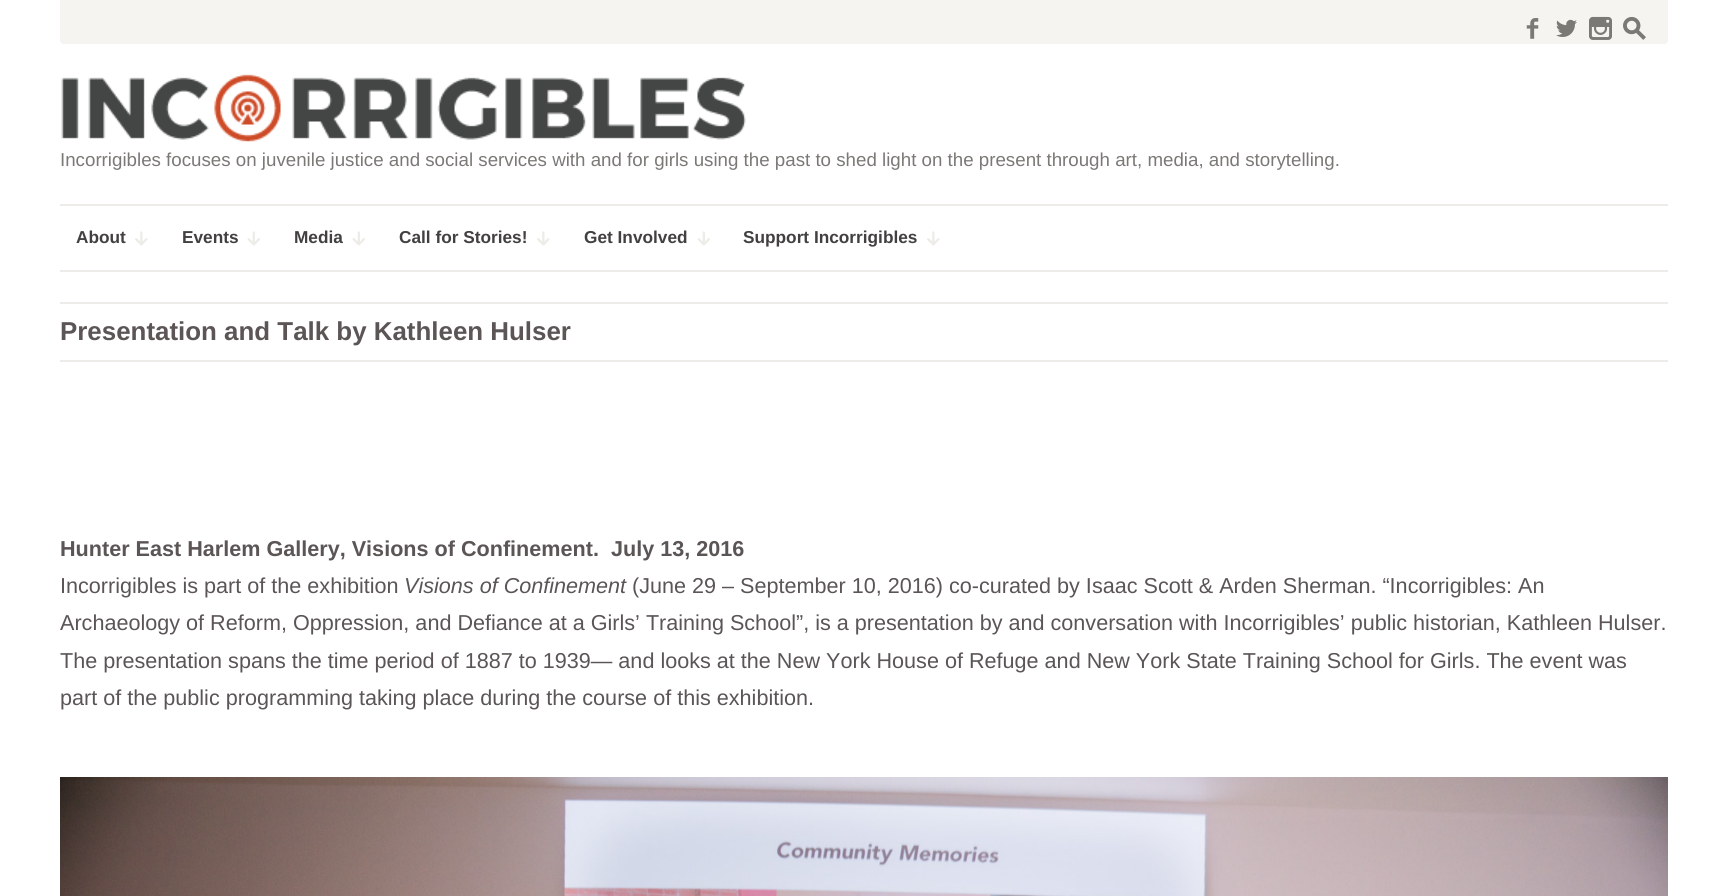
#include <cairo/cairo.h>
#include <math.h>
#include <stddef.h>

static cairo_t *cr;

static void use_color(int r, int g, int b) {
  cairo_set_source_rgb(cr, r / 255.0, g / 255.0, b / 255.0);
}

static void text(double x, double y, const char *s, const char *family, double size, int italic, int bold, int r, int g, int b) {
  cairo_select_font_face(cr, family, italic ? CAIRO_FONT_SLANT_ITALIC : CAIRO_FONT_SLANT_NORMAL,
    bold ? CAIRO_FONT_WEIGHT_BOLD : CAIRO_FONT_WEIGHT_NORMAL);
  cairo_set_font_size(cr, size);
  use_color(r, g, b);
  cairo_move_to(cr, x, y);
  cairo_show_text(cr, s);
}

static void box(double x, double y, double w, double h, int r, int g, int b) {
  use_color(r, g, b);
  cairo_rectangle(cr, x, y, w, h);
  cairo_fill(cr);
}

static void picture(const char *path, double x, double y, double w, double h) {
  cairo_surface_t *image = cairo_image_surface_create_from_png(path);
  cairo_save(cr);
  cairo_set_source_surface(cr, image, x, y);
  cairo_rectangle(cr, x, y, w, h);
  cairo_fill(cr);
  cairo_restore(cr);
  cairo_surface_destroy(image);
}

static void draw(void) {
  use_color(255, 255, 255);
  cairo_paint(cr);
  use_color(245, 244, 241);
  cairo_new_path(cr);
  cairo_move_to(cr, 60, 0);
  cairo_line_to(cr, 1668, 0);
  cairo_line_to(cr, 1668, 41);
  cairo_curve_to(cr, 1668, 42.5, 1666.5, 44, 1665, 44);
  cairo_line_to(cr, 63, 44);
  cairo_curve_to(cr, 61.5, 44, 60, 42.5, 60, 41);
  cairo_close_path(cr);
  cairo_fill(cr);
  picture("img_01.png", 61, 74, 685, 68);
  box(60, 204, 1608, 2, 237, 236, 232);
  box(60, 270, 1608, 2, 237, 236, 232);
  picture("img_02.png", 135, 231, 13, 15);
  picture("img_03.png", 247, 231, 13, 15);
  picture("img_03.png", 352, 231, 13, 15);
  picture("img_02.png", 537, 231, 13, 15);
  picture("img_03.png", 697, 231, 13, 15);
  picture("img_02.png", 927, 231, 13, 15);
  box(60, 302, 1608, 2, 237, 236, 232);
  box(60, 360, 1608, 2, 237, 236, 232);
  picture("img_04.png", 60, 777, 1608, 119);
  text(1521, 38, "f", "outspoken", 23, 0, 0, 123, 121, 118);
  text(1555, 38, "w", "outspoken", 23, 0, 0, 123, 121, 118);
  text(1589, 38, "n", "outspoken", 23, 0, 0, 123, 121, 118);
  text(1623, 38, "s", "outspoken", 23, 0, 0, 123, 121, 118);
  text(60, 166, "Incorrigibles focuses on juvenile justice and social services with and for girls using the past to shed light on the present through art, media, and storytelling.", "Liberation Sans", 18.72, 0, 0, 123, 121, 118);
  text(76, 243, "About", "Liberation Sans", 17.25, 0, 1, 66, 64, 64);
  text(182, 243, "Events", "Liberation Sans", 17.25, 0, 1, 66, 64, 64);
  text(294, 243, "Media", "Liberation Sans", 17.25, 0, 1, 66, 64, 64);
  text(399, 243, "Call for Stories!", "Liberation Sans", 17.25, 0, 1, 66, 64, 64);
  text(584, 243, "Get Involved", "Liberation Sans", 17.25, 0, 1, 66, 64, 64);
  text(743, 243, "Support Incorrigibles", "Liberation Sans", 17.25, 0, 1, 66, 64, 64);
  text(60, 340, "Presentation and Talk by Kathleen Hulser", "Liberation Sans", 25.9, 0, 1, 91, 85, 85);
  text(60, 556, "Hunter East Harlem Gallery, Visions of Confinement.  July 13, 2016", "Liberation Sans", 21.6, 0, 1, 91, 85, 85);
  text(60, 593, "Incorrigibles is part of the exhibition", "Liberation Sans", 21.6, 0, 0, 91, 85, 85);
  text(404, 593, "Visions of Confinement", "Liberation Sans", 21.6, 1, 0, 91, 85, 85);
  text(632, 593, "(June 29 – September 10, 2016) co-curated by Isaac Scott & Arden Sherman. “Incorrigibles: An", "Liberation Sans", 21.6, 0, 0, 91, 85, 85);
  text(60, 630, "Archaeology of Reform, Oppression, and Defiance at a Girls’ Training School”, is a presentation by and conversation with Incorrigibles’ public historian, Kathleen Hulser.", "Liberation Sans", 21.6, 0, 0, 91, 85, 85);
  text(60, 668, "The presentation spans the time period of 1887 to 1939— and looks at the New York House of Refuge and New York State Training School for Girls. The event was", "Liberation Sans", 21.6, 0, 0, 91, 85, 85);
  text(60, 705, "part of the public programming taking place during the course of this exhibition.", "Liberation Sans", 21.6, 0, 0, 91, 85, 85);
}

int main(void) {
  cairo_surface_t *surface = cairo_image_surface_create(CAIRO_FORMAT_RGB24, 1727, 896);
  cr = cairo_create(surface);
  cairo_font_options_t *options = cairo_font_options_create();
  cairo_font_options_set_hint_metrics(options, CAIRO_HINT_METRICS_OFF);
  cairo_font_options_set_hint_style(options, CAIRO_HINT_STYLE_NONE);
  cairo_set_font_options(cr, options);
  cairo_set_miter_limit(cr, 4);
  draw();
  cairo_surface_write_to_png(surface, "out.png");
  cairo_font_options_destroy(options);
  cairo_destroy(cr);
  cairo_surface_destroy(surface);
  return 0;
}
